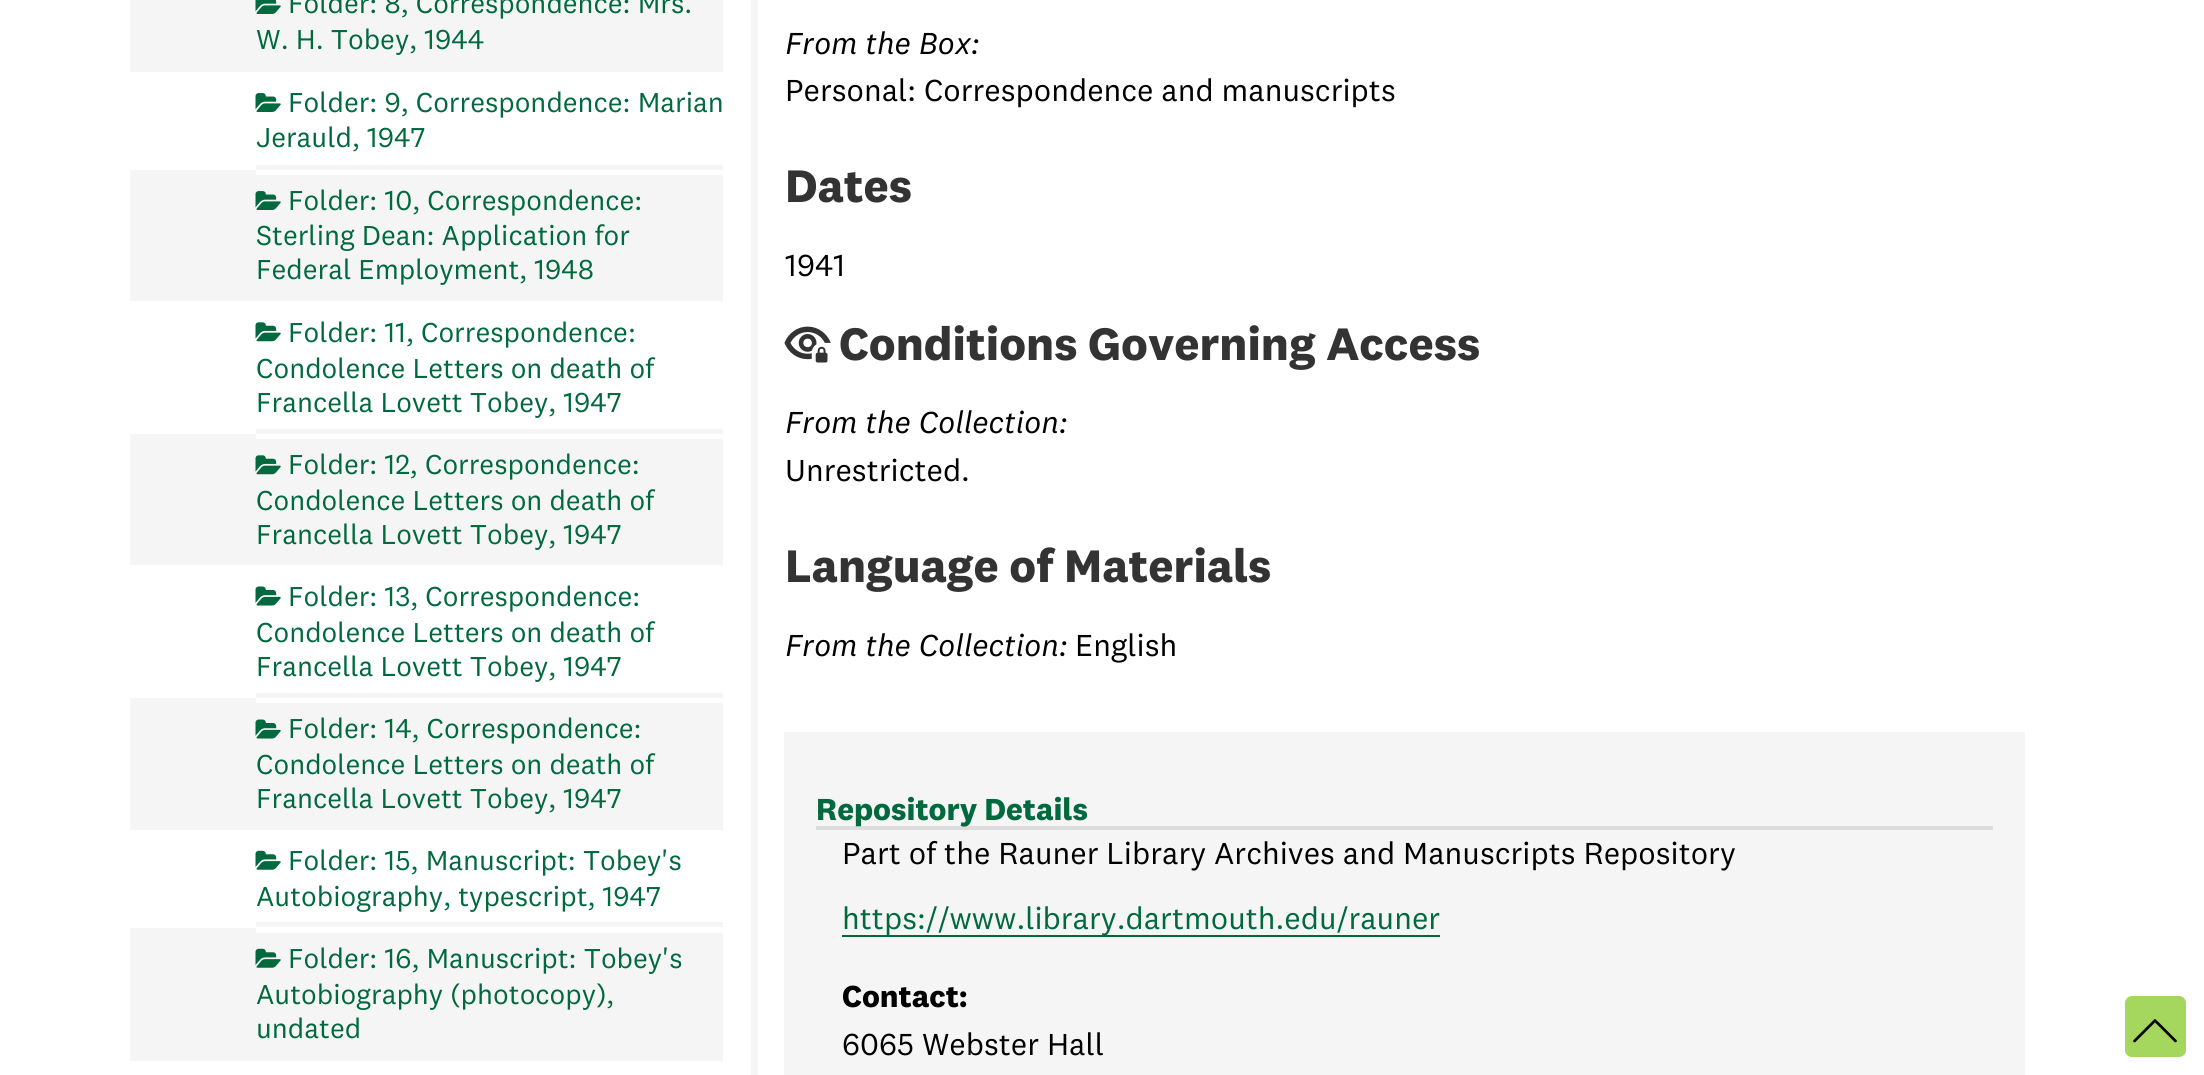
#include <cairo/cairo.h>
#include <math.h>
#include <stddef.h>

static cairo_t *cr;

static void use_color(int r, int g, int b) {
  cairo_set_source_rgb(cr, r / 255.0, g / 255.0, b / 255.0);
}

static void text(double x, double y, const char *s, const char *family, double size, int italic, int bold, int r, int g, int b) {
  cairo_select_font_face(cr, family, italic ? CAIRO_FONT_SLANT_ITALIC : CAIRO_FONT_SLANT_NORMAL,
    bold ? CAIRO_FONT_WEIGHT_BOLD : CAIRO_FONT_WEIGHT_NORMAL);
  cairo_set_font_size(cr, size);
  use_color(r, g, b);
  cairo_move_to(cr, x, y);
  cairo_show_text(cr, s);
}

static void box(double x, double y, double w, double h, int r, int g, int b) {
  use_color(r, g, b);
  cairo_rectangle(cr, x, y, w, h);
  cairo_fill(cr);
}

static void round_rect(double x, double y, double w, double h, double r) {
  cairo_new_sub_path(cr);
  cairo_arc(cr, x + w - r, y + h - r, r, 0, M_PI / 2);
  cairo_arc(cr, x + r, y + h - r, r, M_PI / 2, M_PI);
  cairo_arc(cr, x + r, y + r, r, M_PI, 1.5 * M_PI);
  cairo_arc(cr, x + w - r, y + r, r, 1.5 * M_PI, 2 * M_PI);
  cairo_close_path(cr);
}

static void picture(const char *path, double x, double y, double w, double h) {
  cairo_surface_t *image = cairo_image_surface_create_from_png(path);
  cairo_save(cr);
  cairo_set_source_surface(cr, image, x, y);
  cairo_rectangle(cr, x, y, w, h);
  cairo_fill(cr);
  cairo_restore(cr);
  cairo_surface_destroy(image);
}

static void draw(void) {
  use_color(255, 255, 255);
  cairo_paint(cr);
  box(130, 0, 593, 72, 245, 245, 245);
  picture("img_01.png", 255, 0, 26, 14);
  box(256, 165, 467, 5, 245, 245, 245);
  picture("img_02.png", 255, 93, 26, 19);
  box(256, 175, 467, 126, 245, 245, 245);
  box(130, 170, 126, 131, 245, 245, 245);
  picture("img_03.png", 255, 191, 26, 19);
  box(256, 429, 467, 5, 245, 245, 245);
  picture("img_04.png", 255, 322, 26, 20);
  box(256, 439, 467, 126, 245, 245, 245);
  box(130, 434, 126, 131, 245, 245, 245);
  picture("img_05.png", 255, 455, 26, 20);
  box(256, 693, 467, 5, 245, 245, 245);
  picture("img_06.png", 255, 586, 26, 20);
  box(256, 703, 467, 127, 245, 245, 245);
  box(130, 698, 126, 132, 245, 245, 245);
  picture("img_07.png", 255, 719, 26, 20);
  box(256, 922, 467, 5, 245, 245, 245);
  picture("img_08.png", 255, 850, 26, 20);
  box(256, 933, 467, 128, 245, 245, 245);
  box(130, 928, 126, 133, 245, 245, 245);
  picture("img_09.png", 255, 948, 26, 20);
  box(751, 0, 7, 1075, 245, 245, 245);
  picture("img_10.png", 784, 326, 47, 37);
  box(784, 732, 1241, 343, 245, 245, 245);
  box(816, 826, 1177, 4, 221, 221, 221);
  box(842, 935, 598, 2, 0, 105, 62);
  use_color(165, 215, 95);
  round_rect(2124, 995, 63, 63, 8);
  cairo_fill_preserve(cr);
  use_color(255, 255, 255);
  cairo_stroke(cr);
  cairo_new_path(cr);
  cairo_move_to(cr, 2175.5, 1041);
  cairo_line_to(cr, 2155, 1020.5);
  cairo_line_to(cr, 2134.5, 1041);
  use_color(0, 0, 0);
  cairo_set_line_width(cr, 2.7);
  cairo_set_line_cap(cr, CAIRO_LINE_CAP_ROUND);
  cairo_set_line_join(cr, CAIRO_LINE_JOIN_ROUND);
  cairo_stroke(cr);
  text(288, 13, "Folder: 8, Correspondence: Mrs.", "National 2", 28.4, 0, 0, 0, 105, 62);
  text(256, 49, "W. H. Tobey, 1944", "National 2", 28.4, 0, 0, 0, 105, 62);
  text(288, 112, "Folder: 9, Correspondence: Marian", "National 2", 28.4, 0, 0, 0, 105, 62);
  text(256, 147, "Jerauld, 1947", "National 2", 28.4, 0, 0, 0, 105, 62);
  text(288, 210, "Folder: 10, Correspondence:", "National 2", 28.4, 0, 0, 0, 105, 62);
  text(256, 245, "Sterling Dean: Application for", "National 2", 28.4, 0, 0, 0, 105, 62);
  text(256, 279, "Federal Employment, 1948", "National 2", 28.4, 0, 0, 0, 105, 62);
  text(288, 342, "Folder: 11, Correspondence:", "National 2", 28.4, 0, 0, 0, 105, 62);
  text(256, 378, "Condolence Letters on death of", "National 2", 28.4, 0, 0, 0, 105, 62);
  text(256, 412, "Francella Lovett Tobey, 1947", "National 2", 28.4, 0, 0, 0, 105, 62);
  text(288, 474, "Folder: 12, Correspondence:", "National 2", 28.4, 0, 0, 0, 105, 62);
  text(256, 510, "Condolence Letters on death of", "National 2", 28.4, 0, 0, 0, 105, 62);
  text(256, 544, "Francella Lovett Tobey, 1947", "National 2", 28.4, 0, 0, 0, 105, 62);
  text(288, 606, "Folder: 13, Correspondence:", "National 2", 28.4, 0, 0, 0, 105, 62);
  text(256, 642, "Condolence Letters on death of", "National 2", 28.4, 0, 0, 0, 105, 62);
  text(256, 676, "Francella Lovett Tobey, 1947", "National 2", 28.4, 0, 0, 0, 105, 62);
  text(288, 738, "Folder: 14, Correspondence:", "National 2", 28.4, 0, 0, 0, 105, 62);
  text(256, 774, "Condolence Letters on death of", "National 2", 28.4, 0, 0, 0, 105, 62);
  text(256, 808, "Francella Lovett Tobey, 1947", "National 2", 28.4, 0, 0, 0, 105, 62);
  text(288, 870, "Folder: 15, Manuscript: Tobey's", "National 2", 28.4, 0, 0, 0, 105, 62);
  text(256, 906, "Autobiography, typescript, 1947", "National 2", 28.4, 0, 0, 0, 105, 62);
  text(288, 968, "Folder: 16, Manuscript: Tobey's", "National 2", 28.4, 0, 0, 0, 105, 62);
  text(256, 1004, "Autobiography (photocopy),", "National 2", 28.4, 0, 0, 0, 105, 62);
  text(256, 1038, "undated", "National 2", 28.4, 0, 0, 0, 105, 62);
  text(785, 54, "From the Box:", "National 2", 31.5, 1, 0, 0, 0, 0);
  text(785, 101, "Personal: Correspondence and manuscripts", "National 2", 31.5, 0, 0, 0, 0, 0);
  text(785, 202, "Dates", "National 2", 47.25, 0, 1, 51, 51, 51);
  text(785, 276, "1941", "National 2", 31.5, 0, 0, 0, 0, 0);
  text(839, 360, "Conditions Governing Access", "National 2", 47.25, 0, 1, 51, 51, 51);
  text(785, 433, "From the Collection:", "National 2", 31.5, 1, 0, 0, 0, 0);
  text(785, 481, "Unrestricted.", "National 2", 31.5, 0, 0, 0, 0, 0);
  text(785, 582, "Language of Materials", "National 2", 47.25, 0, 1, 51, 51, 51);
  text(785, 656, "From the Collection:", "National 2", 31.5, 1, 0, 0, 0, 0);
  text(1075, 656, "English", "National 2", 31.5, 0, 0, 0, 0, 0);
  text(816, 820, "Repository Details", "National 2", 31.5, 0, 1, 0, 105, 62);
  text(842, 864, "Part of the Rauner Library Archives and Manuscripts Repository", "National 2", 31.5, 0, 0, 0, 0, 0);
  text(842, 929, "https://www.library.dartmouth.edu/rauner", "National 2", 31.5, 0, 0, 0, 105, 62);
  text(842, 1007, "Contact:", "National 2", 31.5, 0, 1, 0, 0, 0);
  text(842, 1055, "6065 Webster Hall", "National 2", 31.5, 0, 0, 0, 0, 0);
}

int main(void) {
  cairo_surface_t *surface = cairo_image_surface_create(CAIRO_FORMAT_RGB24, 2204, 1075);
  cr = cairo_create(surface);
  cairo_font_options_t *options = cairo_font_options_create();
  cairo_font_options_set_hint_metrics(options, CAIRO_HINT_METRICS_OFF);
  cairo_font_options_set_hint_style(options, CAIRO_HINT_STYLE_NONE);
  cairo_set_font_options(cr, options);
  cairo_set_miter_limit(cr, 4);
  draw();
  cairo_surface_write_to_png(surface, "out.png");
  cairo_font_options_destroy(options);
  cairo_destroy(cr);
  cairo_surface_destroy(surface);
  return 0;
}
